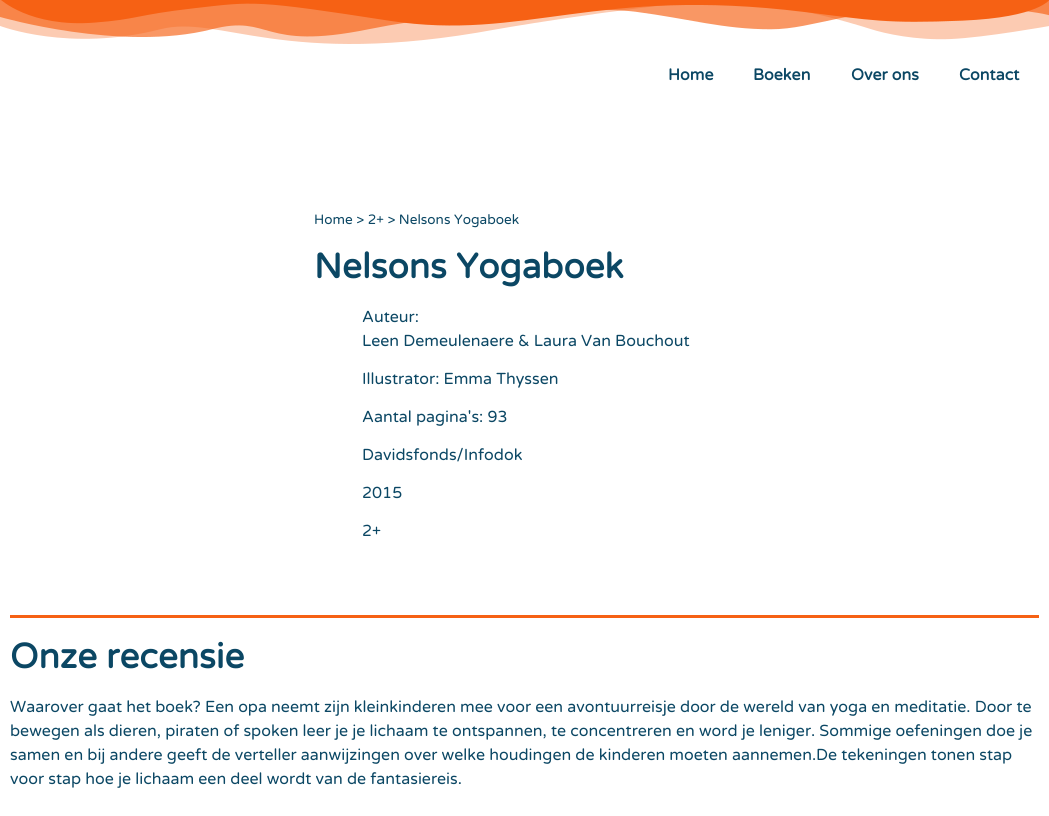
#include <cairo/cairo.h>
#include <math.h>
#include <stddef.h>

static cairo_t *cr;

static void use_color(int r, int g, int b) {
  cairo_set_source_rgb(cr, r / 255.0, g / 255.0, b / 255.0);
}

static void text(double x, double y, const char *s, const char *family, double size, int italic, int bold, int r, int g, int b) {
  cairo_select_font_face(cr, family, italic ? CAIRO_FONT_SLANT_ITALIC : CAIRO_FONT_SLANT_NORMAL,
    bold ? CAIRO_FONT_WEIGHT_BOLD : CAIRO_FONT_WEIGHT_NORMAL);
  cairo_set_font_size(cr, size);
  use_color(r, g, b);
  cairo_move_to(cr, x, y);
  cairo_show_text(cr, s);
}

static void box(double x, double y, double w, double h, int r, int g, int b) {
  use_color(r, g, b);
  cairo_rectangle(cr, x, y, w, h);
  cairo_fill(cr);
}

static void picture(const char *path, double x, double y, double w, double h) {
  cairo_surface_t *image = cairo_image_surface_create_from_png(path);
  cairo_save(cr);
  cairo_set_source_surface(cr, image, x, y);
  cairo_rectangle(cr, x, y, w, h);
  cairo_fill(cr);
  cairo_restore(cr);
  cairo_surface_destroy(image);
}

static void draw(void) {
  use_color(255, 255, 255);
  cairo_paint(cr);
  picture("img_01.png", 0, 0, 1049, 44);
  box(10, 615, 1029, 3, 246, 97, 20);
  text(668, 80, "Home", "Varela Round", 16, 0, 1, 11, 71, 100);
  text(753, 80, "Boeken", "Varela Round", 16, 0, 1, 11, 71, 100);
  text(851, 80, "Over ons", "Varela Round", 16, 0, 1, 11, 71, 100);
  text(959, 80, "Contact", "Varela Round", 16, 0, 1, 11, 71, 100);
  text(314, 224, "Home > 2+ > Nelsons Yogaboek", "Varela Round", 13.6, 0, 0, 11, 71, 100);
  text(314, 278, "Nelsons Yogaboek", "Varela Round", 35, 0, 1, 11, 71, 100);
  text(362, 322, "Auteur:", "Varela Round", 16, 0, 0, 11, 71, 100);
  text(362, 346, "Leen Demeulenaere & Laura Van Bouchout", "Varela Round", 16, 0, 0, 11, 71, 100);
  text(362, 384, "Illustrator: Emma Thyssen", "Varela Round", 16, 0, 0, 11, 71, 100);
  text(362, 422, "Aantal pagina's: 93", "Varela Round", 16, 0, 0, 11, 71, 100);
  text(362, 460, "Davidsfonds/Infodok", "Varela Round", 16, 0, 0, 11, 71, 100);
  text(362, 498, "2015", "Varela Round", 16, 0, 0, 11, 71, 100);
  text(362, 536, "2+", "Varela Round", 16, 0, 0, 11, 71, 100);
  text(10, 668, "Onze recensie", "Varela Round", 35, 0, 1, 11, 71, 100);
  text(10, 712, "Waarover gaat het boek? Een opa neemt zijn kleinkinderen mee voor een avontuurreisje door de wereld van yoga en meditatie. Door te", "Varela Round", 16, 0, 0, 11, 71, 100);
  text(10, 736, "bewegen als dieren, piraten of spoken leer je je lichaam te ontspannen, te concentreren en word je leniger. Sommige oefeningen doe je", "Varela Round", 16, 0, 0, 11, 71, 100);
  text(10, 760, "samen en bij andere geeft de verteller aanwijzingen over welke houdingen de kinderen moeten aannemen.De tekeningen tonen stap", "Varela Round", 16, 0, 0, 11, 71, 100);
  text(10, 784, "voor stap hoe je lichaam een deel wordt van de fantasiereis.", "Varela Round", 16, 0, 0, 11, 71, 100);
}

int main(void) {
  cairo_surface_t *surface = cairo_image_surface_create(CAIRO_FORMAT_RGB24, 1049, 816);
  cr = cairo_create(surface);
  cairo_font_options_t *options = cairo_font_options_create();
  cairo_font_options_set_hint_metrics(options, CAIRO_HINT_METRICS_OFF);
  cairo_font_options_set_hint_style(options, CAIRO_HINT_STYLE_NONE);
  cairo_set_font_options(cr, options);
  cairo_set_miter_limit(cr, 4);
  draw();
  cairo_surface_write_to_png(surface, "out.png");
  cairo_font_options_destroy(options);
  cairo_destroy(cr);
  cairo_surface_destroy(surface);
  return 0;
}
